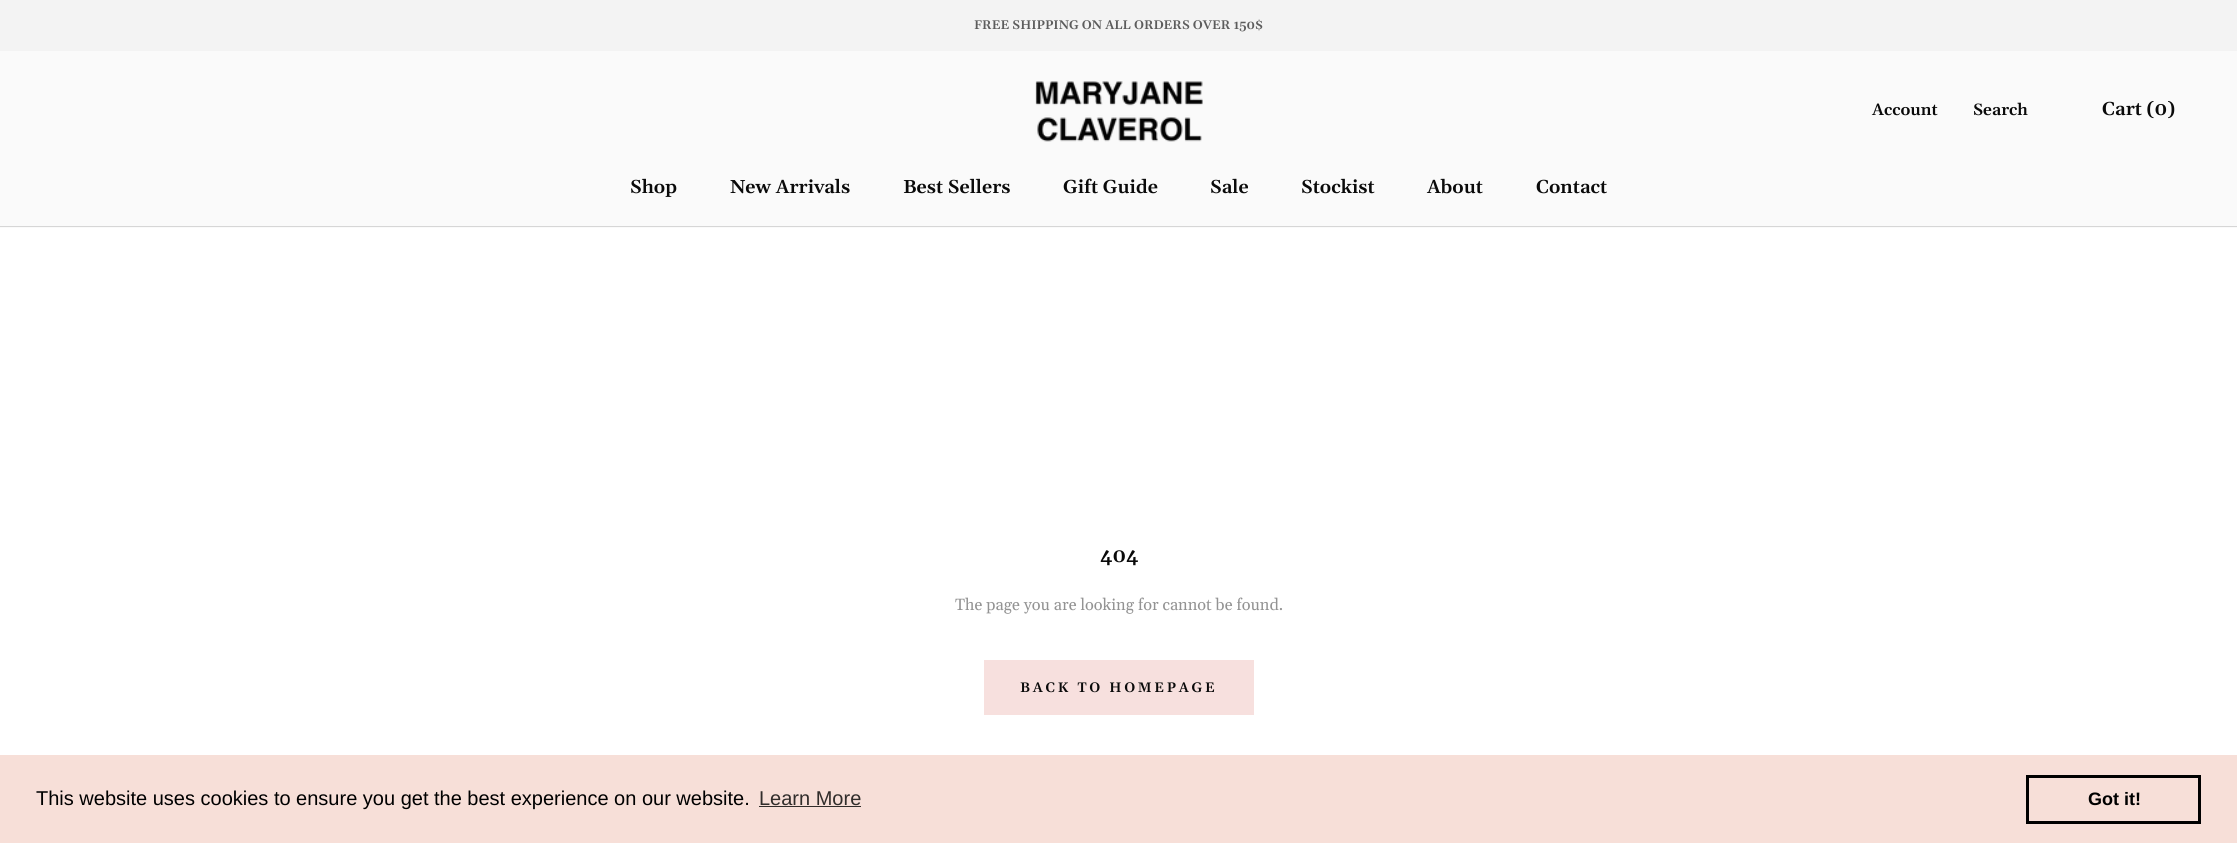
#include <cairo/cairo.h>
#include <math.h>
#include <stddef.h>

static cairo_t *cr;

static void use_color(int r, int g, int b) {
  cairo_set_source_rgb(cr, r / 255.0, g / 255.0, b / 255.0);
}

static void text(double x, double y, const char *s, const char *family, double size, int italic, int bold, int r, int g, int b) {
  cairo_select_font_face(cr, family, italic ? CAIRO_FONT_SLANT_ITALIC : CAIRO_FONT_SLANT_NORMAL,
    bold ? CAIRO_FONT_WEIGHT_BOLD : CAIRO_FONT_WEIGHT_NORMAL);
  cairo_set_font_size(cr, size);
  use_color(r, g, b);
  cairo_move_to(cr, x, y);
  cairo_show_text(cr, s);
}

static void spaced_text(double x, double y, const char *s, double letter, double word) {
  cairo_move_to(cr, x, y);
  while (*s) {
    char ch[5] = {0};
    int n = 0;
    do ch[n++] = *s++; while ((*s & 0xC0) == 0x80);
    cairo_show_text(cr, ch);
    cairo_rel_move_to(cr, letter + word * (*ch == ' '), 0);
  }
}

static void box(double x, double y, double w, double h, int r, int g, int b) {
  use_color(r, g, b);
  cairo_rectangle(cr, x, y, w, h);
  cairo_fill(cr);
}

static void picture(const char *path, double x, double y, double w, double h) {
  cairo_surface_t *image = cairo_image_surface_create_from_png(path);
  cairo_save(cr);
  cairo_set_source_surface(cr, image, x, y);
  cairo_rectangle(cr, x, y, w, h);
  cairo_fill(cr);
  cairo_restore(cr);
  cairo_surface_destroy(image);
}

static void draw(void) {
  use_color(255, 255, 255);
  cairo_paint(cr);
  box(0, 0, 2237, 51, 243, 243, 243);
  box(0, 51, 2237, 177, 250, 250, 250);
  box(0, 226, 2237, 1, 214, 214, 214);
  picture("img_01.png", 1035, 81, 168, 61);
  cairo_rectangle(cr, 984.5, 660.5, 269, 54);
  use_color(247, 224, 222);
  cairo_set_line_width(cr, 1);
  cairo_stroke(cr);
  box(985, 661, 268, 53, 247, 224, 222);
  box(0, 755, 2237, 88, 247, 223, 216);
  box(759, 806, 102, 1, 49, 45, 43);
  cairo_rectangle(cr, 2027.5, 776.5, 172, 46);
  use_color(0, 0, 0);
  cairo_set_line_width(cr, 3);
  cairo_stroke(cr);
  text(974, 29, "FREE SHIPPING ON ALL ORDERS OVER 150$", "Gelasio SemiBold", 12.5, 0, 0, 92, 92, 92);
  text(1872, 115, "Account", "Gelasio SemiBold", 16.25, 0, 0, 10, 10, 10);
  text(1973, 115, "Search", "Gelasio SemiBold", 16.25, 0, 0, 10, 10, 10);
  text(2102, 115, "Cart (0)", "Gelasio SemiBold", 18.75, 0, 0, 10, 10, 10);
  text(630, 193, "Shop", "Gelasio SemiBold", 18.75, 0, 0, 10, 10, 10);
  text(730, 193, "New Arrivals", "Gelasio SemiBold", 18.75, 0, 0, 10, 10, 10);
  text(903, 193, "Best Sellers", "Gelasio SemiBold", 18.75, 0, 0, 10, 10, 10);
  text(1063, 193, "Gift Guide", "Gelasio SemiBold", 18.75, 0, 0, 10, 10, 10);
  text(1210, 193, "Sale", "Gelasio SemiBold", 18.75, 0, 0, 10, 10, 10);
  text(1301, 193, "Stockist", "Gelasio SemiBold", 18.75, 0, 0, 10, 10, 10);
  text(1427, 193, "About", "Gelasio SemiBold", 18.75, 0, 0, 10, 10, 10);
  text(1536, 193, "Contact", "Gelasio SemiBold", 18.75, 0, 0, 10, 10, 10);
  text(1100, 562, "404", "Gelasio SemiBold", 20, 0, 0, 10, 10, 10);
  text(955, 610, "The page you are looking for cannot be found.", "Gelasio", 16.25, 0, 0, 147, 147, 147);
  cairo_select_font_face(cr, "Gelasio SemiBold", CAIRO_FONT_SLANT_NORMAL, CAIRO_FONT_WEIGHT_NORMAL);
  cairo_set_font_size(cr, 13.75);
  use_color(10, 10, 10);
  spaced_text(1020, 692, "BACK TO HOMEPAGE", 2.75, 0);
  text(36, 805, "This website uses cookies to ensure you get the best experience on our website.", "Liberation Sans", 20, 0, 0, 0, 0, 0);
  text(759, 805, "Learn More", "Liberation Sans", 20, 0, 0, 49, 45, 43);
  text(2088, 805, "Got it!", "Liberation Sans", 18, 0, 1, 0, 0, 0);
}

int main(void) {
  cairo_surface_t *surface = cairo_image_surface_create(CAIRO_FORMAT_RGB24, 2237, 843);
  cr = cairo_create(surface);
  cairo_font_options_t *options = cairo_font_options_create();
  cairo_font_options_set_hint_metrics(options, CAIRO_HINT_METRICS_OFF);
  cairo_font_options_set_hint_style(options, CAIRO_HINT_STYLE_NONE);
  cairo_set_font_options(cr, options);
  cairo_set_miter_limit(cr, 4);
  draw();
  cairo_surface_write_to_png(surface, "out.png");
  cairo_font_options_destroy(options);
  cairo_destroy(cr);
  cairo_surface_destroy(surface);
  return 0;
}
